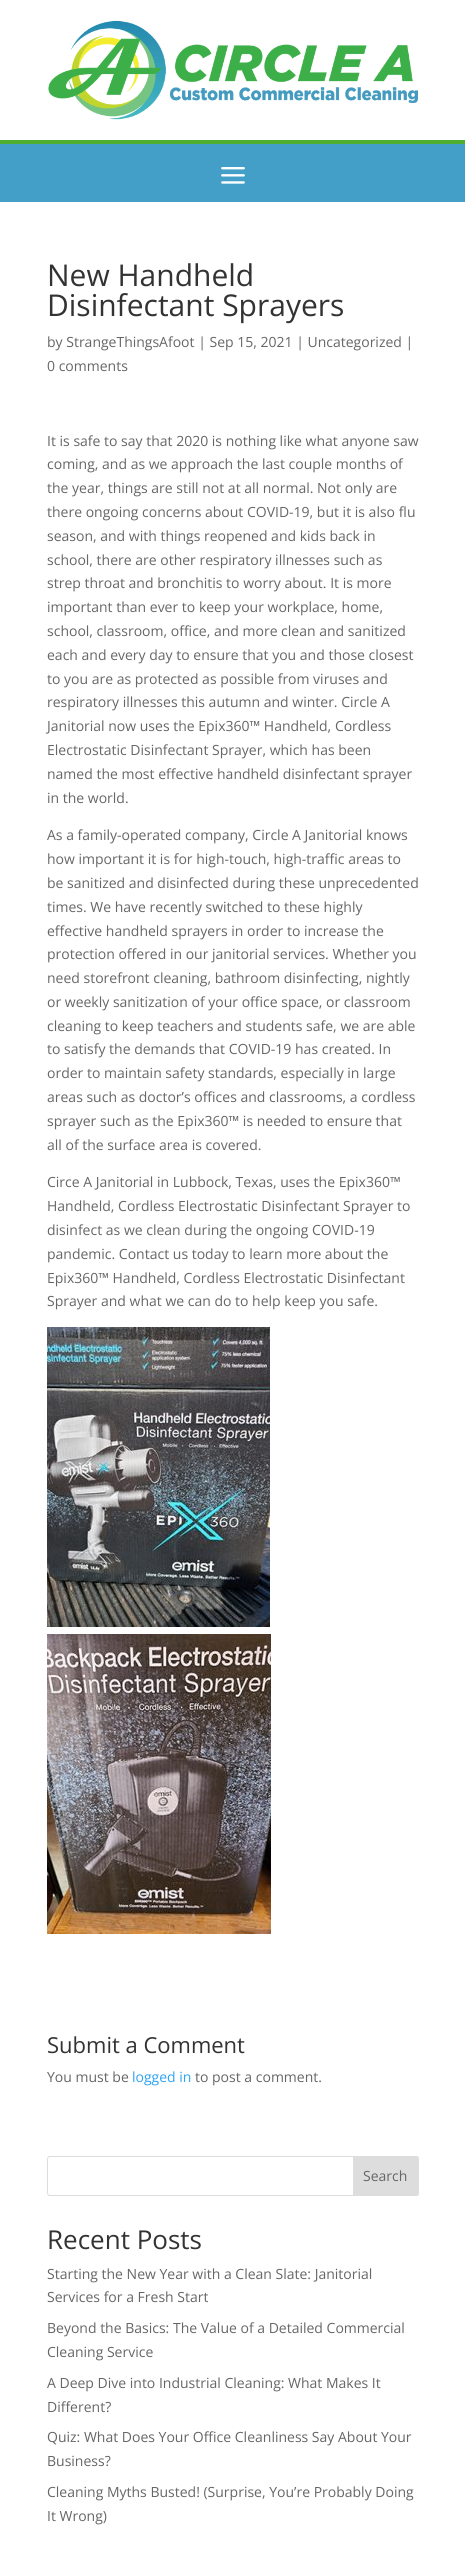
#include <cairo/cairo.h>
#include <math.h>
#include <stddef.h>

static cairo_t *cr;

static void use_color(int r, int g, int b) {
  cairo_set_source_rgb(cr, r / 255.0, g / 255.0, b / 255.0);
}

static void text(double x, double y, const char *s, const char *family, double size, int italic, int bold, int r, int g, int b) {
  cairo_select_font_face(cr, family, italic ? CAIRO_FONT_SLANT_ITALIC : CAIRO_FONT_SLANT_NORMAL,
    bold ? CAIRO_FONT_WEIGHT_BOLD : CAIRO_FONT_WEIGHT_NORMAL);
  cairo_set_font_size(cr, size);
  use_color(r, g, b);
  cairo_move_to(cr, x, y);
  cairo_show_text(cr, s);
}

static void box(double x, double y, double w, double h, int r, int g, int b) {
  use_color(r, g, b);
  cairo_rectangle(cr, x, y, w, h);
  cairo_fill(cr);
}

static void round_rect(double x, double y, double w, double h, double r) {
  cairo_new_sub_path(cr);
  cairo_arc(cr, x + w - r, y + h - r, r, 0, M_PI / 2);
  cairo_arc(cr, x + r, y + h - r, r, M_PI / 2, M_PI);
  cairo_arc(cr, x + r, y + r, r, M_PI, 1.5 * M_PI);
  cairo_arc(cr, x + w - r, y + r, r, 1.5 * M_PI, 2 * M_PI);
  cairo_close_path(cr);
}

static void picture(const char *path, double x, double y, double w, double h) {
  cairo_surface_t *image = cairo_image_surface_create_from_png(path);
  cairo_save(cr);
  cairo_set_source_surface(cr, image, x, y);
  cairo_rectangle(cr, x, y, w, h);
  cairo_fill(cr);
  cairo_restore(cr);
  cairo_surface_destroy(image);
}

static void draw(void) {
  use_color(255, 255, 255);
  cairo_paint(cr);
  picture("img_01.png", 48, 20, 370, 100);
  box(0, 144, 465, 58, 67, 159, 200);
  box(0, 140, 465, 4, 79, 174, 48);
  picture("img_02.png", 221, 167, 24, 17);
  picture("img_03.png", 47, 1327, 223, 300);
  picture("img_04.png", 47, 1634, 224, 300);
  round_rect(47.5, 2156.5, 371, 39, 2.5);
  use_color(221, 221, 221);
  cairo_set_line_width(cr, 1);
  cairo_stroke(cr);
  cairo_new_path(cr);
  cairo_move_to(cr, 353.5, 2156.5);
  cairo_line_to(cr, 416, 2156.5);
  cairo_curve_to(cr, 417.5, 2156.5, 418.5, 2157.5, 418.5, 2159);
  cairo_line_to(cr, 418.5, 2193);
  cairo_curve_to(cr, 418.5, 2194.5, 417.5, 2195.5, 416, 2195.5);
  cairo_line_to(cr, 353.5, 2195.5);
  cairo_close_path(cr);
  cairo_fill_preserve(cr);
  cairo_stroke(cr);
  text(47, 286, "New Handheld", "Open Sans", 30, 0, 0, 51, 51, 51);
  text(47, 316, "Disinfectant Sprayers", "Open Sans", 30, 0, 0, 51, 51, 51);
  text(47, 347, "by StrangeThingsAfoot | Sep 15, 2021 | Uncategorized |", "Open Sans", 14, 0, 0, 102, 102, 102);
  text(47, 371, "0 comments", "Open Sans", 14, 0, 0, 102, 102, 102);
  text(47, 446, "It is safe to say that 2020 is nothing like what anyone saw", "Open Sans", 14, 0, 0, 102, 102, 102);
  text(47, 469, "coming, and as we approach the last couple months of", "Open Sans", 14, 0, 0, 102, 102, 102);
  text(47, 493, "the year, things are still not at all normal. Not only are", "Open Sans", 14, 0, 0, 102, 102, 102);
  text(47, 517, "there ongoing concerns about COVID-19, but it is also flu", "Open Sans", 14, 0, 0, 102, 102, 102);
  text(47, 541, "season, and with things reopened and kids back in", "Open Sans", 14, 0, 0, 102, 102, 102);
  text(47, 565, "school, there are other respiratory illnesses such as", "Open Sans", 14, 0, 0, 102, 102, 102);
  text(47, 588, "strep throat and bronchitis to worry about. It is more", "Open Sans", 14, 0, 0, 102, 102, 102);
  text(47, 612, "important than ever to keep your workplace, home,", "Open Sans", 14, 0, 0, 102, 102, 102);
  text(47, 636, "school, classroom, office, and more clean and sanitized", "Open Sans", 14, 0, 0, 102, 102, 102);
  text(47, 660, "each and every day to ensure that you and those closest", "Open Sans", 14, 0, 0, 102, 102, 102);
  text(47, 684, "to you are as protected as possible from viruses and", "Open Sans", 14, 0, 0, 102, 102, 102);
  text(47, 707, "respiratory illnesses this autumn and winter. Circle A", "Open Sans", 14, 0, 0, 102, 102, 102);
  text(47, 731, "Janitorial now uses the Epix360™ Handheld, Cordless", "Open Sans", 14, 0, 0, 102, 102, 102);
  text(47, 755, "Electrostatic Disinfectant Sprayer, which has been", "Open Sans", 14, 0, 0, 102, 102, 102);
  text(47, 779, "named the most effective handheld disinfectant sprayer", "Open Sans", 14, 0, 0, 102, 102, 102);
  text(47, 803, "in the world.", "Open Sans", 14, 0, 0, 102, 102, 102);
  text(47, 840, "As a family-operated company, Circle A Janitorial knows", "Open Sans", 14, 0, 0, 102, 102, 102);
  text(47, 864, "how important it is for high-touch, high-traffic areas to", "Open Sans", 14, 0, 0, 102, 102, 102);
  text(47, 888, "be sanitized and disinfected during these unprecedented", "Open Sans", 14, 0, 0, 102, 102, 102);
  text(47, 912, "times. We have recently switched to these highly", "Open Sans", 14, 0, 0, 102, 102, 102);
  text(47, 936, "effective handheld sprayers in order to increase the", "Open Sans", 14, 0, 0, 102, 102, 102);
  text(47, 959, "protection offered in our janitorial services. Whether you", "Open Sans", 14, 0, 0, 102, 102, 102);
  text(47, 983, "need storefront cleaning, bathroom disinfecting, nightly", "Open Sans", 14, 0, 0, 102, 102, 102);
  text(47, 1007, "or weekly sanitization of your office space, or classroom", "Open Sans", 14, 0, 0, 102, 102, 102);
  text(47, 1031, "cleaning to keep teachers and students safe, we are able", "Open Sans", 14, 0, 0, 102, 102, 102);
  text(47, 1054, "to satisfy the demands that COVID-19 has created. In", "Open Sans", 14, 0, 0, 102, 102, 102);
  text(47, 1078, "order to maintain safety standards, especially in large", "Open Sans", 14, 0, 0, 102, 102, 102);
  text(47, 1102, "areas such as doctor’s offices and classrooms, a cordless", "Open Sans", 14, 0, 0, 102, 102, 102);
  text(47, 1126, "sprayer such as the Epix360™ is needed to ensure that", "Open Sans", 14, 0, 0, 102, 102, 102);
  text(47, 1150, "all of the surface area is covered.", "Open Sans", 14, 0, 0, 102, 102, 102);
  text(47, 1187, "Circe A Janitorial in Lubbock, Texas, uses the Epix360™", "Open Sans", 14, 0, 0, 102, 102, 102);
  text(47, 1211, "Handheld, Cordless Electrostatic Disinfectant Sprayer to", "Open Sans", 14, 0, 0, 102, 102, 102);
  text(47, 1235, "disinfect as we clean during the ongoing COVID-19", "Open Sans", 14, 0, 0, 102, 102, 102);
  text(47, 1259, "pandemic. Contact us today to learn more about the", "Open Sans", 14, 0, 0, 102, 102, 102);
  text(47, 1283, "Epix360™ Handheld, Cordless Electrostatic Disinfectant", "Open Sans", 14, 0, 0, 102, 102, 102);
  text(47, 1306, "Sprayer and what we can do to help keep you safe.", "Open Sans", 14, 0, 0, 102, 102, 102);
  text(47, 2053, "Submit a Comment", "Open Sans", 22, 0, 0, 51, 51, 51);
  text(47, 2082, "You must be", "Open Sans", 14, 0, 0, 102, 102, 102);
  text(132, 2082, "logged in", "Open Sans", 14, 0, 0, 46, 163, 242);
  text(195, 2082, "to post a comment.", "Open Sans", 14, 0, 0, 102, 102, 102);
  text(363, 2181, "Search", "Open Sans", 14, 0, 0, 102, 102, 102);
  text(47, 2249, "Recent Posts", "Open Sans", 26, 0, 0, 51, 51, 51);
  text(47, 2279, "Starting the New Year with a Clean Slate: Janitorial", "Open Sans", 14, 0, 0, 102, 102, 102);
  text(47, 2302, "Services for a Fresh Start", "Open Sans", 14, 0, 0, 102, 102, 102);
  text(47, 2333, "Beyond the Basics: The Value of a Detailed Commercial", "Open Sans", 14, 0, 0, 102, 102, 102);
  text(47, 2357, "Cleaning Service", "Open Sans", 14, 0, 0, 102, 102, 102);
  text(47, 2388, "A Deep Dive into Industrial Cleaning: What Makes It", "Open Sans", 14, 0, 0, 102, 102, 102);
  text(47, 2412, "Different?", "Open Sans", 14, 0, 0, 102, 102, 102);
  text(47, 2442, "Quiz: What Does Your Office Cleanliness Say About Your", "Open Sans", 14, 0, 0, 102, 102, 102);
  text(47, 2466, "Business?", "Open Sans", 14, 0, 0, 102, 102, 102);
  text(47, 2497, "Cleaning Myths Busted! (Surprise, You’re Probably Doing", "Open Sans", 14, 0, 0, 102, 102, 102);
  text(47, 2521, "It Wrong)", "Open Sans", 14, 0, 0, 102, 102, 102);
}

int main(void) {
  cairo_surface_t *surface = cairo_image_surface_create(CAIRO_FORMAT_RGB24, 465, 2572);
  cr = cairo_create(surface);
  cairo_font_options_t *options = cairo_font_options_create();
  cairo_font_options_set_hint_metrics(options, CAIRO_HINT_METRICS_OFF);
  cairo_font_options_set_hint_style(options, CAIRO_HINT_STYLE_NONE);
  cairo_set_font_options(cr, options);
  cairo_set_miter_limit(cr, 4);
  draw();
  cairo_surface_write_to_png(surface, "out.png");
  cairo_font_options_destroy(options);
  cairo_destroy(cr);
  cairo_surface_destroy(surface);
  return 0;
}
